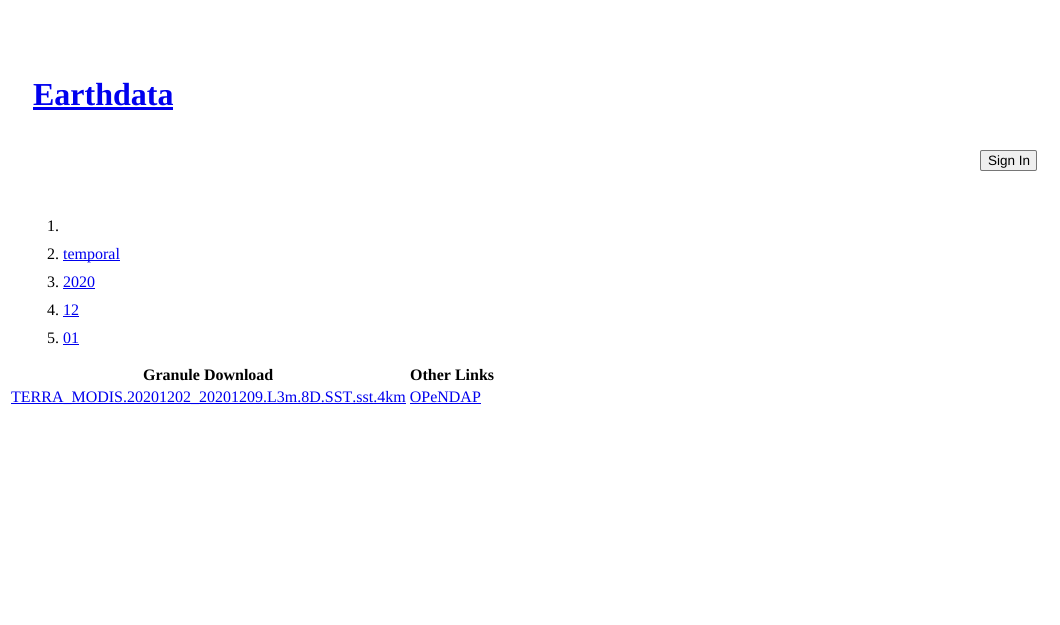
#include <cairo/cairo.h>
#include <math.h>
#include <stddef.h>

static cairo_t *cr;

static void use_color(int r, int g, int b) {
  cairo_set_source_rgb(cr, r / 255.0, g / 255.0, b / 255.0);
}

static void text(double x, double y, const char *s, const char *family, double size, int italic, int bold, int r, int g, int b) {
  cairo_select_font_face(cr, family, italic ? CAIRO_FONT_SLANT_ITALIC : CAIRO_FONT_SLANT_NORMAL,
    bold ? CAIRO_FONT_WEIGHT_BOLD : CAIRO_FONT_WEIGHT_NORMAL);
  cairo_set_font_size(cr, size);
  use_color(r, g, b);
  cairo_move_to(cr, x, y);
  cairo_show_text(cr, s);
}

static void box(double x, double y, double w, double h, int r, int g, int b) {
  use_color(r, g, b);
  cairo_rectangle(cr, x, y, w, h);
  cairo_fill(cr);
}

static void round_rect(double x, double y, double w, double h, double r) {
  cairo_new_sub_path(cr);
  cairo_arc(cr, x + w - r, y + h - r, r, 0, M_PI / 2);
  cairo_arc(cr, x + r, y + h - r, r, M_PI / 2, M_PI);
  cairo_arc(cr, x + r, y + r, r, M_PI, 1.5 * M_PI);
  cairo_arc(cr, x + w - r, y + r, r, 1.5 * M_PI, 2 * M_PI);
  cairo_close_path(cr);
}

static void draw(void) {
  use_color(255, 255, 255);
  cairo_paint(cr);
  box(33, 107, 140, 3, 0, 0, 238);
  use_color(239, 239, 239);
  round_rect(980.5, 150.5, 56, 20, 1.5);
  cairo_fill_preserve(cr);
  use_color(118, 118, 118);
  cairo_set_line_width(cr, 1);
  cairo_stroke(cr);
  box(63, 260, 57, 1, 0, 0, 238);
  box(63, 288, 32, 1, 0, 0, 238);
  box(63, 316, 16, 1, 0, 0, 238);
  box(63, 344, 16, 1, 0, 0, 238);
  box(11, 403, 395, 1, 0, 0, 238);
  box(410, 403, 71, 1, 0, 0, 238);
  text(33, 105, "Earthdata", "Liberation Serif", 32, 0, 1, 0, 0, 238);
  text(988, 165, "Sign In", "Liberation Sans", 13.5, 0, 0, 0, 0, 0);
  text(47, 231, "1.", "Liberation Serif", 16, 0, 0, 0, 0, 0);
  text(47, 259, "2.", "Liberation Serif", 16, 0, 0, 0, 0, 0);
  text(63, 259, "temporal", "Liberation Serif", 16, 0, 0, 0, 0, 238);
  text(47, 287, "3.", "Liberation Serif", 16, 0, 0, 0, 0, 0);
  text(63, 287, "2020", "Liberation Serif", 16, 0, 0, 0, 0, 238);
  text(47, 315, "4.", "Liberation Serif", 16, 0, 0, 0, 0, 0);
  text(63, 315, "12", "Liberation Serif", 16, 0, 0, 0, 0, 238);
  text(47, 343, "5.", "Liberation Serif", 16, 0, 0, 0, 0, 0);
  text(63, 343, "01", "Liberation Serif", 16, 0, 0, 0, 0, 238);
  text(143, 380, "Granule Download", "Liberation Serif", 16, 0, 1, 0, 0, 0);
  text(410, 380, "Other Links", "Liberation Serif", 16, 0, 1, 0, 0, 0);
  text(11, 402, "TERRA_MODIS.20201202_20201209.L3m.8D.SST.sst.4km OPeNDAP", "Liberation Serif", 16, 0, 0, 0, 0, 238);
}

int main(void) {
  cairo_surface_t *surface = cairo_image_surface_create(CAIRO_FORMAT_RGB24, 1060, 625);
  cr = cairo_create(surface);
  cairo_font_options_t *options = cairo_font_options_create();
  cairo_font_options_set_hint_metrics(options, CAIRO_HINT_METRICS_OFF);
  cairo_font_options_set_hint_style(options, CAIRO_HINT_STYLE_NONE);
  cairo_set_font_options(cr, options);
  cairo_set_miter_limit(cr, 4);
  draw();
  cairo_surface_write_to_png(surface, "out.png");
  cairo_font_options_destroy(options);
  cairo_destroy(cr);
  cairo_surface_destroy(surface);
  return 0;
}
